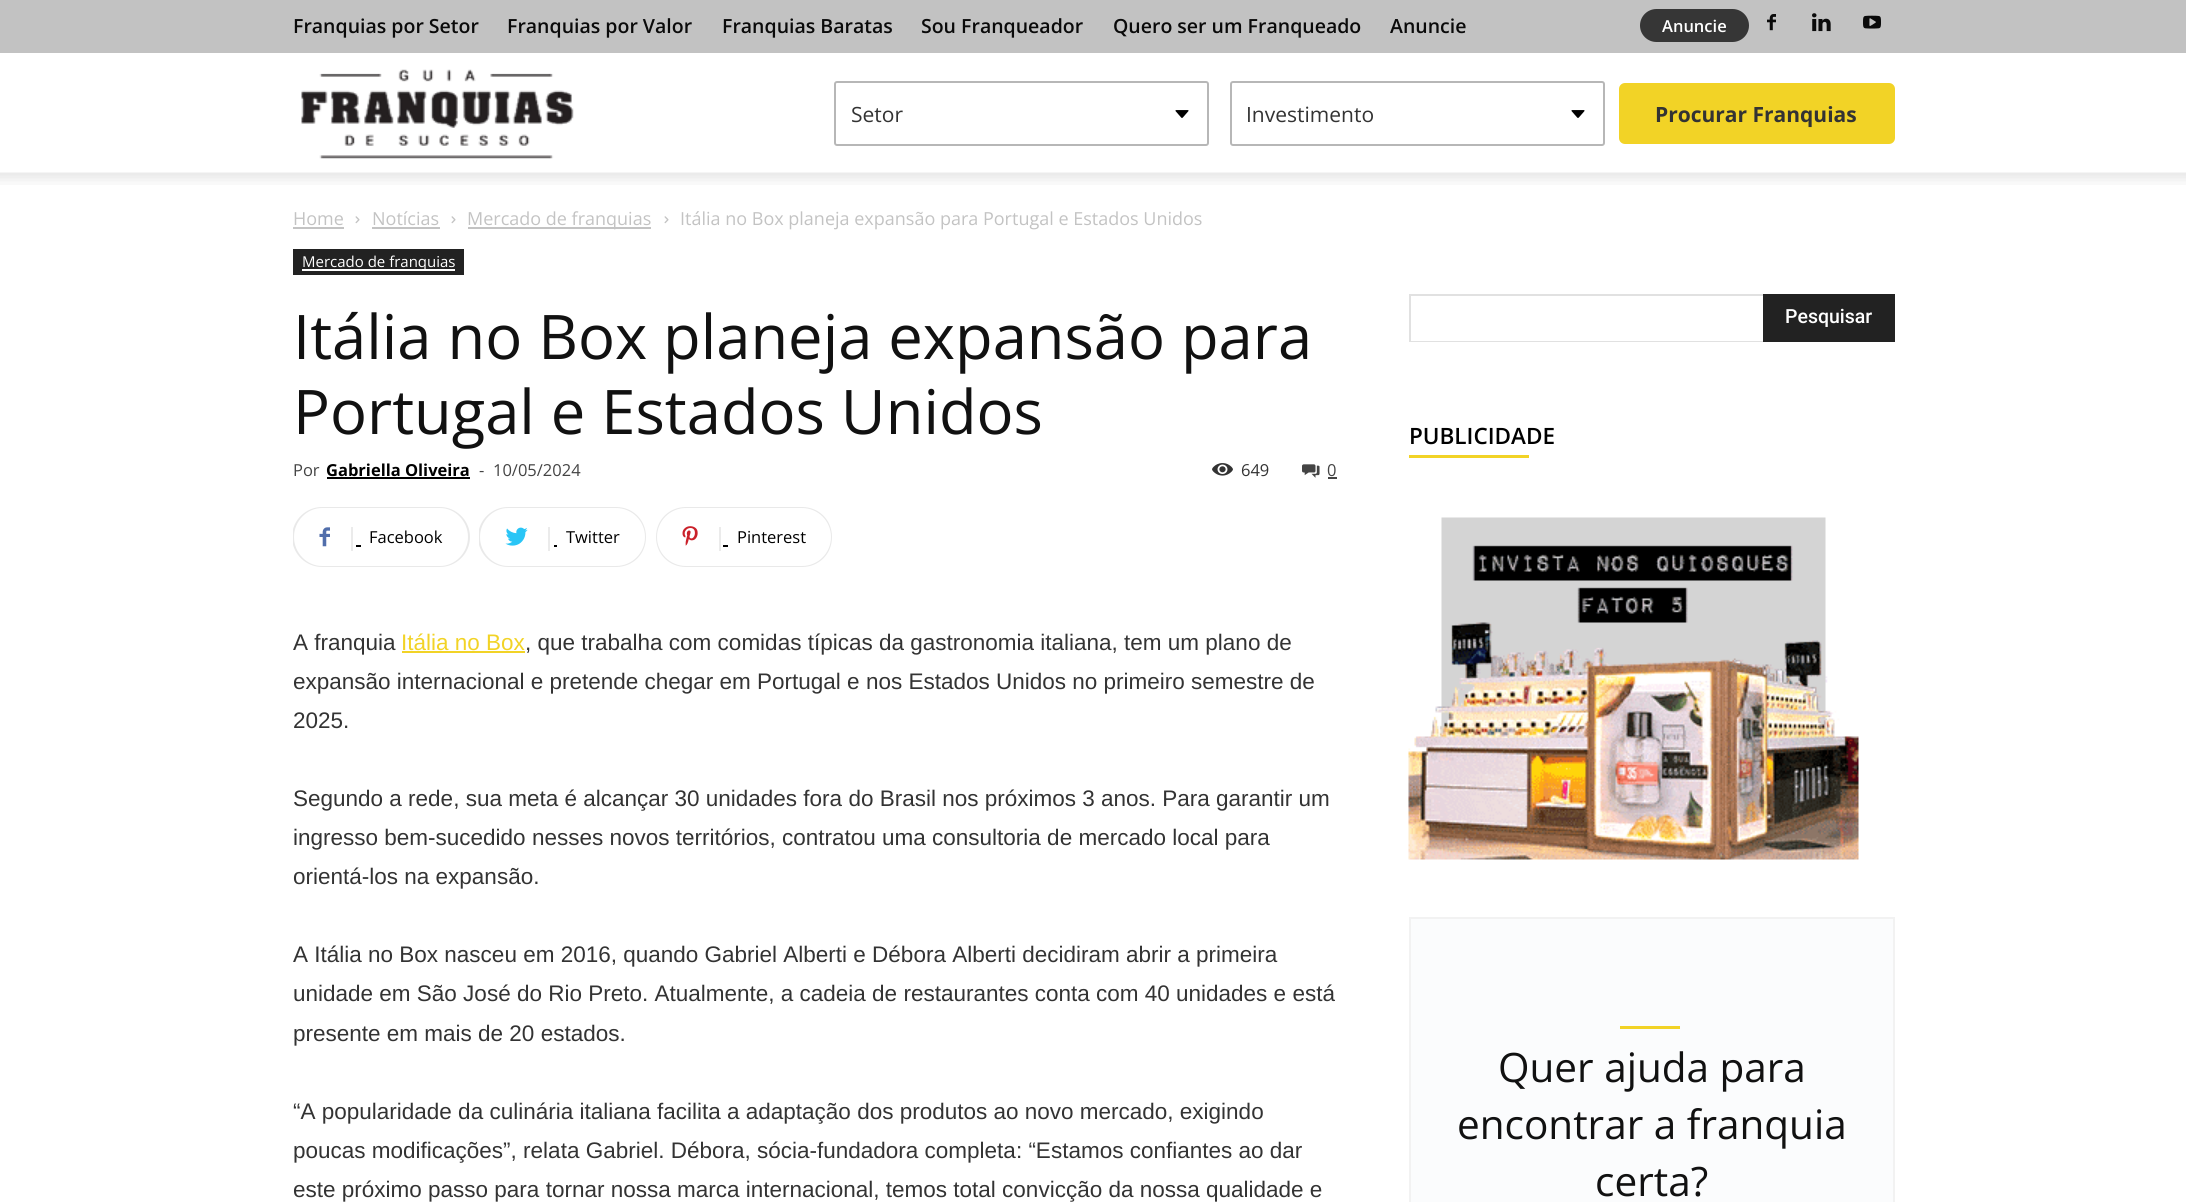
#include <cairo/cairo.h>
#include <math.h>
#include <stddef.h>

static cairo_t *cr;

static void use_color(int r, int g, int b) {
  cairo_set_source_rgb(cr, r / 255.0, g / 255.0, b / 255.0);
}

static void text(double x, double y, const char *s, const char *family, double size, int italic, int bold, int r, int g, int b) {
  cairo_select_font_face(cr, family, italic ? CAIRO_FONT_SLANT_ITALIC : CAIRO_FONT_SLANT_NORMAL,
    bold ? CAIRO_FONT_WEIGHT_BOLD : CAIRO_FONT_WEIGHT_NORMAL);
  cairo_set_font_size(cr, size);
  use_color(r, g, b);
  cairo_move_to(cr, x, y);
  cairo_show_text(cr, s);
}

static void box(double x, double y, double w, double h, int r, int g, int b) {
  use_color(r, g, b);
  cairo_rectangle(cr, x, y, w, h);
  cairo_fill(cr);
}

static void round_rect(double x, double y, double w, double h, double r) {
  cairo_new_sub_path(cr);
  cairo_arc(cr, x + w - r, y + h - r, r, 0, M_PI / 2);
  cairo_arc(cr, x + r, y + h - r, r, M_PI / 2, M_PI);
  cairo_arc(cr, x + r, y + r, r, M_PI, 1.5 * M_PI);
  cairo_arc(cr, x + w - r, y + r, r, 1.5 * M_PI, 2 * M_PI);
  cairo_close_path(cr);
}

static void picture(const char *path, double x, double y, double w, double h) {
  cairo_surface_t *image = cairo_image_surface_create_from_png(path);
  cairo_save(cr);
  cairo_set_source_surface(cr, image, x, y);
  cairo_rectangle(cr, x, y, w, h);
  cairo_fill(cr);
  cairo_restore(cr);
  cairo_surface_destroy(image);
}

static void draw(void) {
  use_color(255, 255, 255);
  cairo_paint(cr);
  box(0, 0, 2186, 53, 194, 194, 194);
  use_color(54, 54, 54);
  round_rect(1640, 9, 109, 33, 16.5);
  cairo_fill(cr);
  picture("img_01.png", 1767, 14, 9, 17);
  picture("img_02.png", 1812, 13, 19, 19);
  picture("img_03.png", 1863, 15, 18, 14);
  picture("img_04.png", 301, 69, 273, 90);
  picture("img_05.png", 1175, 110, 14, 8);
  round_rect(835, 82, 373, 63, 2);
  use_color(183, 183, 183);
  cairo_stroke(cr);
  picture("img_05.png", 1571, 110, 14, 8);
  round_rect(1231, 82, 373, 63, 2);
  cairo_stroke(cr);
  use_color(242, 211, 38);
  round_rect(1619, 83, 276, 61, 6);
  cairo_fill(cr);
  picture("img_06.png", 0, 172, 2186, 13);
  box(293, 227, 51, 2, 195, 195, 195);
  picture("img_07.png", 355, 216, 5, 8);
  box(372, 227, 68, 2, 195, 195, 195);
  picture("img_07.png", 451, 216, 5, 8);
  box(468, 227, 183, 2, 195, 195, 195);
  picture("img_07.png", 664, 216, 5, 8);
  box(293, 249, 171, 26, 34, 34, 34);
  box(302, 269, 153, 2, 255, 255, 255);
  box(327, 477, 143, 2, 0, 0, 0);
  picture("img_08.png", 1212, 463, 21, 13);
  picture("img_09.png", 1302, 464, 18, 14);
  box(1328, 477, 9, 2, 68, 68, 68);
  box(356, 545, 5, 2, 0, 0, 0);
  use_color(233, 233, 233);
  cairo_set_fill_rule(cr, CAIRO_FILL_RULE_EVEN_ODD);
  cairo_new_path(cr);
  cairo_move_to(cr, 351, 507);
  cairo_line_to(cr, 440, 507);
  cairo_curve_to(cr, 456, 507, 470, 520, 470, 537);
  cairo_curve_to(cr, 470, 554, 456, 567, 440, 567);
  cairo_line_to(cr, 351, 567);
  cairo_close_path(cr);
  cairo_move_to(cr, 351, 508);
  cairo_line_to(cr, 440, 508);
  cairo_curve_to(cr, 455, 508, 468, 521, 468, 537);
  cairo_curve_to(cr, 468, 553, 455, 566, 440, 566);
  cairo_line_to(cr, 351, 566);
  cairo_close_path(cr);
  cairo_fill(cr);
  cairo_save(cr);
  cairo_set_fill_rule(cr, CAIRO_FILL_RULE_WINDING);
  cairo_rectangle(cr, 293, 507, 177, 60);
  cairo_clip(cr);
  cairo_set_fill_rule(cr, CAIRO_FILL_RULE_EVEN_ODD);
  cairo_new_path(cr);
  cairo_move_to(cr, 322, 507);
  cairo_line_to(cr, 356, 507);
  cairo_line_to(cr, 356, 567);
  cairo_line_to(cr, 322, 567);
  cairo_curve_to(cr, 306, 567, 292, 554, 292, 537);
  cairo_curve_to(cr, 292, 520, 306, 507, 322, 507);
  cairo_close_path(cr);
  cairo_move_to(cr, 322, 508);
  cairo_line_to(cr, 356, 508);
  cairo_line_to(cr, 356, 566);
  cairo_line_to(cr, 322, 566);
  cairo_curve_to(cr, 307, 566, 294, 553, 294, 537);
  cairo_curve_to(cr, 294, 521, 307, 508, 322, 508);
  cairo_close_path(cr);
  cairo_fill(cr);
  cairo_restore(cr);
  picture("img_10.png", 319, 527, 11, 20);
  box(351, 527, 2, 24, 235, 235, 235);
  box(554, 545, 3, 2, 0, 0, 0);
  use_color(233, 233, 233);
  cairo_new_path(cr);
  cairo_move_to(cr, 548, 507);
  cairo_line_to(cr, 616, 507);
  cairo_curve_to(cr, 633, 507, 646, 520, 646, 537);
  cairo_curve_to(cr, 646, 554, 633, 567, 616, 567);
  cairo_line_to(cr, 548, 567);
  cairo_close_path(cr);
  cairo_move_to(cr, 548, 508);
  cairo_line_to(cr, 616, 508);
  cairo_curve_to(cr, 632, 508, 645, 521, 645, 537);
  cairo_curve_to(cr, 645, 553, 632, 566, 616, 566);
  cairo_line_to(cr, 548, 566);
  cairo_close_path(cr);
  cairo_fill(cr);
  cairo_save(cr);
  cairo_set_fill_rule(cr, CAIRO_FILL_RULE_WINDING);
  cairo_rectangle(cr, 479, 507, 168, 60);
  cairo_clip(cr);
  cairo_set_fill_rule(cr, CAIRO_FILL_RULE_EVEN_ODD);
  cairo_new_path(cr);
  cairo_move_to(cr, 508, 507);
  cairo_line_to(cr, 554, 507);
  cairo_line_to(cr, 554, 567);
  cairo_line_to(cr, 508, 567);
  cairo_curve_to(cr, 492, 567, 478, 554, 478, 537);
  cairo_curve_to(cr, 478, 520, 492, 507, 508, 507);
  cairo_close_path(cr);
  cairo_move_to(cr, 508, 508);
  cairo_line_to(cr, 554, 508);
  cairo_line_to(cr, 554, 566);
  cairo_line_to(cr, 508, 566);
  cairo_curve_to(cr, 493, 566, 480, 553, 480, 537);
  cairo_curve_to(cr, 480, 521, 493, 508, 508, 508);
  cairo_close_path(cr);
  cairo_fill(cr);
  cairo_restore(cr);
  picture("img_11.png", 505, 527, 23, 19);
  box(548, 527, 2, 24, 235, 235, 235);
  box(723, 545, 5, 2, 0, 0, 0);
  use_color(233, 233, 233);
  cairo_new_path(cr);
  cairo_move_to(cr, 718, 507);
  cairo_line_to(cr, 802, 507);
  cairo_curve_to(cr, 819, 507, 832, 520, 832, 537);
  cairo_curve_to(cr, 832, 554, 819, 567, 802, 567);
  cairo_line_to(cr, 718, 567);
  cairo_close_path(cr);
  cairo_move_to(cr, 718, 508);
  cairo_line_to(cr, 802, 508);
  cairo_curve_to(cr, 818, 508, 831, 521, 831, 537);
  cairo_curve_to(cr, 831, 553, 818, 566, 802, 566);
  cairo_line_to(cr, 718, 566);
  cairo_close_path(cr);
  cairo_fill(cr);
  cairo_new_path(cr);
  cairo_move_to(cr, 686, 507);
  cairo_line_to(cr, 723, 507);
  cairo_line_to(cr, 723, 567);
  cairo_line_to(cr, 686, 567);
  cairo_curve_to(cr, 669, 567, 656, 554, 656, 537);
  cairo_curve_to(cr, 656, 520, 669, 507, 686, 507);
  cairo_close_path(cr);
  cairo_move_to(cr, 686, 508);
  cairo_line_to(cr, 723, 508);
  cairo_line_to(cr, 723, 566);
  cairo_line_to(cr, 686, 566);
  cairo_curve_to(cr, 670, 566, 657, 553, 657, 537);
  cairo_curve_to(cr, 657, 521, 670, 508, 686, 508);
  cairo_close_path(cr);
  cairo_fill(cr);
  picture("img_12.png", 682, 526, 16, 20);
  box(719, 527, 2, 24, 235, 235, 235);
  box(402, 651, 123, 2, 242, 211, 38);
  box(1409, 294, 354, 2, 225, 225, 225);
  box(1409, 341, 354, 1, 225, 225, 225);
  box(1409, 294, 2, 48, 225, 225, 225);
  box(1763, 294, 132, 48, 34, 34, 34);
  box(1409, 455, 120, 3, 242, 211, 38);
  picture("img_13.png", 1408, 517, 451, 343);
  use_color(251, 252, 253);
  cairo_rectangle(cr, 1410, 918, 484, 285);
  cairo_fill_preserve(cr);
  use_color(242, 242, 242);
  cairo_stroke(cr);
  box(1620, 1026, 60, 3, 242, 211, 38);
  text(293, 33, "Franquias por Setor", "Open Sans SemiBold", 19.5, 0, 0, 10, 10, 10);
  text(507, 33, "Franquias por Valor", "Open Sans SemiBold", 19.5, 0, 0, 10, 10, 10);
  text(722, 33, "Franquias Baratas", "Open Sans SemiBold", 19.5, 0, 0, 10, 10, 10);
  text(921, 33, "Sou Franqueador", "Open Sans SemiBold", 19.5, 0, 0, 10, 10, 10);
  text(1113, 33, "Quero ser um Franqueado", "Open Sans SemiBold", 19.5, 0, 0, 10, 10, 10);
  text(1390, 33, "Anuncie", "Open Sans SemiBold", 19.5, 0, 0, 10, 10, 10);
  text(1662, 32, "Anuncie", "Open Sans SemiBold", 16.5, 0, 0, 255, 255, 255);
  text(851, 122, "Setor", "Open Sans", 21, 0, 0, 51, 51, 51);
  text(1246, 122, "Investimento", "Open Sans", 21, 0, 0, 51, 51, 51);
  text(1655, 122, "Procurar Franquias", "Open Sans", 21, 0, 1, 51, 51, 51);
  text(293, 225, "Home", "Open Sans", 18, 0, 0, 195, 195, 195);
  text(372, 225, "Notícias", "Open Sans", 18, 0, 0, 195, 195, 195);
  text(467, 225, "Mercado de franquias", "Open Sans", 18, 0, 0, 195, 195, 195);
  text(680, 225, "Itália no Box planeja expansão para Portugal e Estados Unidos", "Open Sans", 18, 0, 0, 195, 195, 195);
  text(302, 267, "Mercado de franquias", "Open Sans", 15, 0, 0, 255, 255, 255);
  text(293, 359, "Itália no Box planeja expansão para", "Open Sans", 61.5, 0, 0, 17, 17, 17);
  text(293, 434, "Portugal e Estados Unidos", "Open Sans", 61.5, 0, 0, 17, 17, 17);
  text(293, 476, "Por", "Open Sans", 16.5, 0, 0, 68, 68, 68);
  text(326, 476, "Gabriella Oliveira", "Open Sans", 16.5, 0, 1, 0, 0, 0);
  text(479, 476, "-", "Open Sans", 16.5, 0, 0, 68, 68, 68);
  text(493, 476, "10/05/2024", "Open Sans", 16.5, 0, 0, 68, 68, 68);
  text(1241, 476, "649", "Open Sans", 16.5, 0, 0, 51, 51, 51);
  text(1327, 476, "0", "Open Sans", 16.5, 0, 0, 68, 68, 68);
  text(369, 543, "Facebook", "Open Sans", 16.5, 0, 0, 0, 0, 0);
  text(566, 543, "Twitter", "Open Sans", 16.5, 0, 0, 0, 0, 0);
  text(737, 543, "Pinterest", "Open Sans", 16.5, 0, 0, 0, 0, 0);
  text(293, 650, "A franquia", "Liberation Sans", 22.5, 0, 0, 51, 51, 51);
  text(401, 650, "Itália no Box", "Liberation Sans", 22.5, 0, 0, 242, 211, 38);
  text(525, 650, ", que trabalha com comidas típicas da gastronomia italiana, tem um plano de", "Liberation Sans", 22.5, 0, 0, 51, 51, 51);
  text(293, 689, "expansão internacional e pretende chegar em Portugal e nos Estados Unidos no primeiro semestre de", "Liberation Sans", 22.5, 0, 0, 51, 51, 51);
  text(293, 728, "2025.", "Liberation Sans", 22.5, 0, 0, 51, 51, 51);
  text(293, 806, "Segundo a rede, sua meta é alcançar 30 unidades fora do Brasil nos próximos 3 anos. Para garantir um", "Liberation Sans", 22.5, 0, 0, 51, 51, 51);
  text(293, 845, "ingresso bem-sucedido nesses novos territórios, contratou uma consultoria de mercado local para", "Liberation Sans", 22.5, 0, 0, 51, 51, 51);
  text(293, 884, "orientá-los na expansão.", "Liberation Sans", 22.5, 0, 0, 51, 51, 51);
  text(293, 962, "A Itália no Box nasceu em 2016, quando Gabriel Alberti e Débora Alberti decidiram abrir a primeira", "Liberation Sans", 22.5, 0, 0, 51, 51, 51);
  text(293, 1001, "unidade em São José do Rio Preto. Atualmente, a cadeia de restaurantes conta com 40 unidades e está", "Liberation Sans", 22.5, 0, 0, 51, 51, 51);
  text(293, 1041, "presente em mais de 20 estados.", "Liberation Sans", 22.5, 0, 0, 51, 51, 51);
  text(293, 1119, "“A popularidade da culinária italiana facilita a adaptação dos produtos ao novo mercado, exigindo", "Liberation Sans", 22.5, 0, 0, 51, 51, 51);
  text(293, 1158, "poucas modificações”, relata Gabriel. Débora, sócia-fundadora completa: “Estamos confiantes ao dar", "Liberation Sans", 22.5, 0, 0, 51, 51, 51);
  text(293, 1197, "este próximo passo para tornar nossa marca internacional, temos total convicção da nossa qualidade e", "Liberation Sans", 22.5, 0, 0, 51, 51, 51);
  text(1785, 323, "Pesquisar", "Roboto Medium", 19.5, 0, 0, 255, 255, 255);
  text(1409, 444, "PUBLICIDADE", "Open Sans SemiBold", 22.5, 0, 0, 0, 0, 0);
  text(1498, 1082, "Quer ajuda para", "Open Sans", 40.5, 0, 0, 17, 17, 17);
  text(1457, 1139, "encontrar a franquia", "Open Sans", 40.5, 0, 0, 17, 17, 17);
  text(1595, 1196, "certa?", "Open Sans", 40.5, 0, 0, 17, 17, 17);
}

int main(void) {
  cairo_surface_t *surface = cairo_image_surface_create(CAIRO_FORMAT_RGB24, 2186, 1202);
  cr = cairo_create(surface);
  cairo_font_options_t *options = cairo_font_options_create();
  cairo_font_options_set_hint_metrics(options, CAIRO_HINT_METRICS_OFF);
  cairo_font_options_set_hint_style(options, CAIRO_HINT_STYLE_NONE);
  cairo_set_font_options(cr, options);
  cairo_set_miter_limit(cr, 4);
  draw();
  cairo_surface_write_to_png(surface, "out.png");
  cairo_font_options_destroy(options);
  cairo_destroy(cr);
  cairo_surface_destroy(surface);
  return 0;
}
